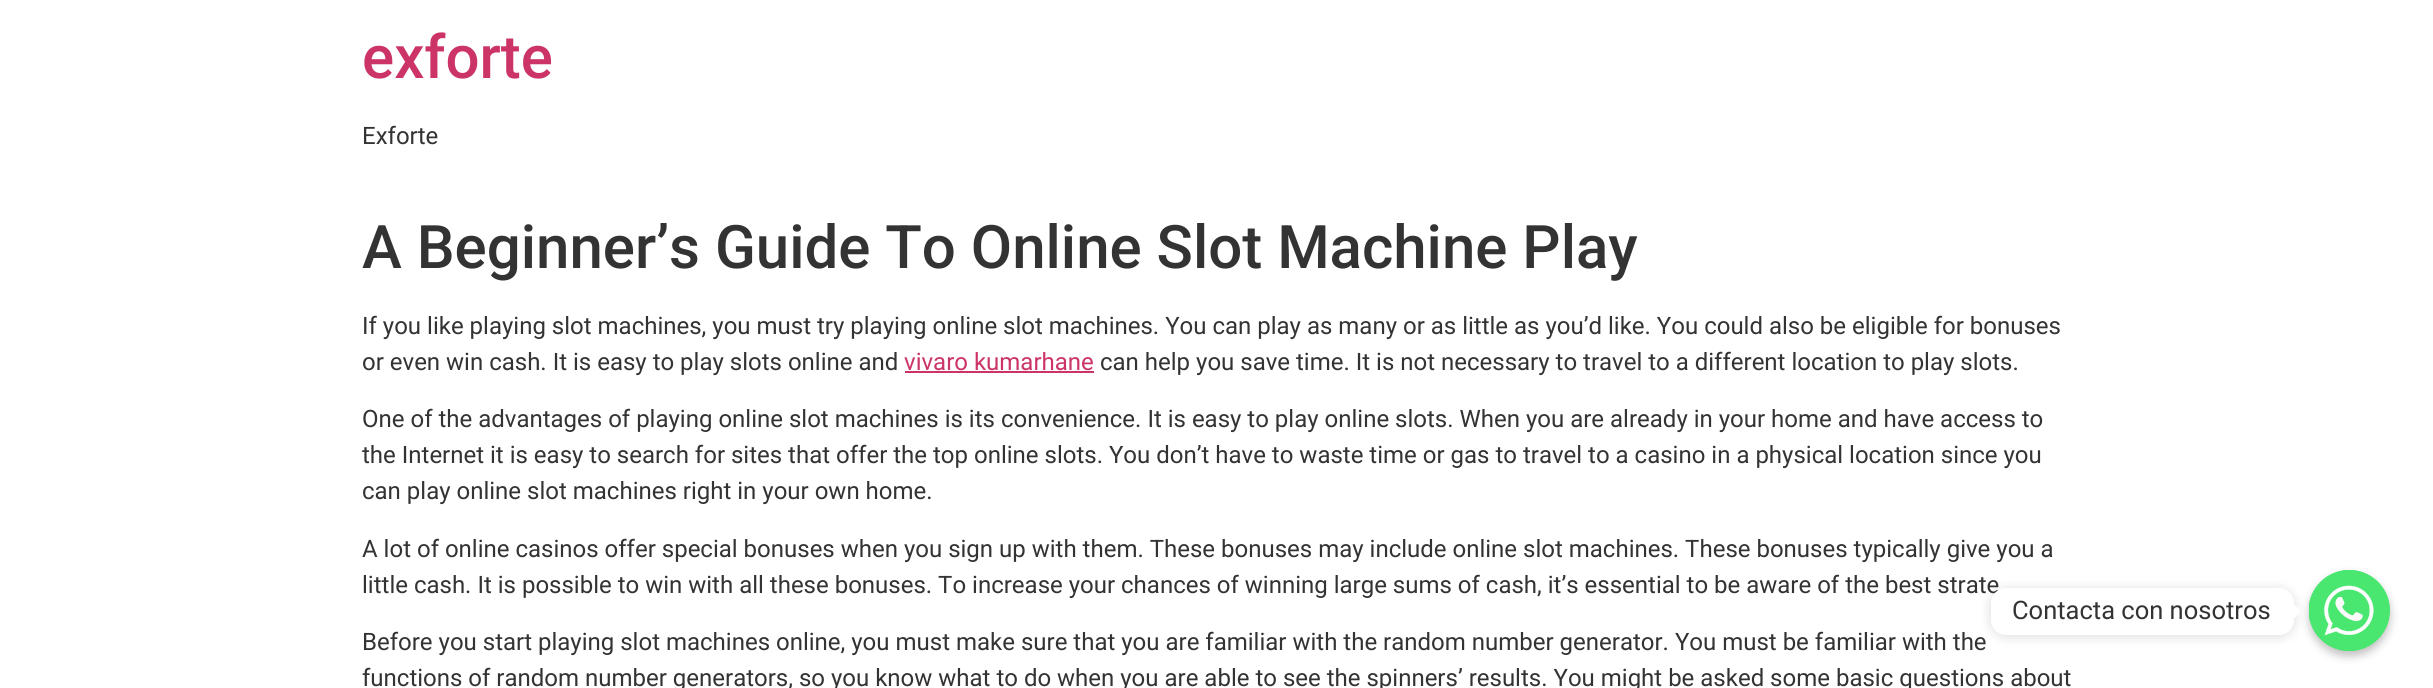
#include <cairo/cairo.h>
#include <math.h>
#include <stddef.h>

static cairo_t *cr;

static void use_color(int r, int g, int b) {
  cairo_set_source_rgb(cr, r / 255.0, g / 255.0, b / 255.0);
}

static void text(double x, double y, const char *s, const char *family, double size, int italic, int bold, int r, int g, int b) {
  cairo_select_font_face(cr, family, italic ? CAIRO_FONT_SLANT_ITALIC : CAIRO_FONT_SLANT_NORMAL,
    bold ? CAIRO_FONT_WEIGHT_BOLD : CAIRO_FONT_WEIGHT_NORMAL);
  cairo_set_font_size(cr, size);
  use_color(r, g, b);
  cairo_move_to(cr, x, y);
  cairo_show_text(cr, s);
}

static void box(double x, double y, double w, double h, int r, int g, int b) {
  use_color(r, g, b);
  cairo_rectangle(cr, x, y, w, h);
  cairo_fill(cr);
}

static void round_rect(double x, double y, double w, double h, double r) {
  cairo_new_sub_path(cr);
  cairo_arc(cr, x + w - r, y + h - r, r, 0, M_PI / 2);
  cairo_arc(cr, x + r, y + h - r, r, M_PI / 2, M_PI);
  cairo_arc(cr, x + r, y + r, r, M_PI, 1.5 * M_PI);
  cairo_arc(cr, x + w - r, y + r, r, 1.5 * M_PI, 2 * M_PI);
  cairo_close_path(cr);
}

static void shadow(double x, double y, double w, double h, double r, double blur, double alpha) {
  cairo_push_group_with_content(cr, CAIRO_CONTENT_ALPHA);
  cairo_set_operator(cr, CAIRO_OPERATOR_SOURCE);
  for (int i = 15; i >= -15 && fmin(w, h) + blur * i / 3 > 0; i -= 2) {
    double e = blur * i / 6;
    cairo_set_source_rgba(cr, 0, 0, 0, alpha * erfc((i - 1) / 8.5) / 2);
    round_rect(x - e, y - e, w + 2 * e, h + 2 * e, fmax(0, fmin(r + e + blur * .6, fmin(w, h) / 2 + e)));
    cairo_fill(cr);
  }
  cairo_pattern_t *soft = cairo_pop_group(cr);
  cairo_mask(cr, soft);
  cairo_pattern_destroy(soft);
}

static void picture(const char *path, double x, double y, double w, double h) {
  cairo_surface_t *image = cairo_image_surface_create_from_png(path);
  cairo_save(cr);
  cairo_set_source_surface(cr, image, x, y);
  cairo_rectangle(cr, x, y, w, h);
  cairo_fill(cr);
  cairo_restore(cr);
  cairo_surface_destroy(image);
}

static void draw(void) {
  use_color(255, 255, 255);
  cairo_paint(cr);
  box(905, 371, 189, 2, 204, 51, 102);
  use_color(0, 0, 0);
  shadow(2309, 575, 81, 81, 40.5, 4.5, 0.25);
  use_color(73, 230, 112);
  cairo_arc(cr, 2349.5, 610.5, 40.5, 0, 2 * M_PI);
  cairo_fill(cr);
  picture("img_01.png", 2309, 570, 81, 81);
  use_color(0, 0, 0);
  shadow(1991, 590, 303, 46, 15, 6, 0.15);
  text(362, 78, "exforte", "Roboto Medium", 60, 0, 0, 204, 51, 102);
  text(362, 144, "Exforte", "Roboto", 24, 0, 0, 51, 51, 51);
  text(362, 268, "A Beginner’s Guide To Online Slot Machine Play", "Roboto Medium", 60, 0, 0, 51, 51, 51);
  text(362, 334, "If you like playing slot machines, you must try playing online slot machines. You can play as many or as little as you’d like. You could also be eligible for bonuses", "Roboto", 24, 0, 0, 51, 51, 51);
  text(362, 370, "or even win cash. It is easy to play slots online and", "Roboto", 24, 0, 0, 51, 51, 51);
  text(904, 370, "vivaro kumarhane", "Roboto", 24, 0, 0, 204, 51, 102);
  text(1100, 370, "can help you save time. It is not necessary to travel to a different location to play slots.", "Roboto", 24, 0, 0, 51, 51, 51);
  text(362, 427, "One of the advantages of playing online slot machines is its convenience. It is easy to play online slots. When you are already in your home and have access to", "Roboto", 24, 0, 0, 51, 51, 51);
  text(362, 463, "the Internet it is easy to search for sites that offer the top online slots. You don’t have to waste time or gas to travel to a casino in a physical location since you", "Roboto", 24, 0, 0, 51, 51, 51);
  text(362, 499, "can play online slot machines right in your own home.", "Roboto", 24, 0, 0, 51, 51, 51);
  text(362, 557, "A lot of online casinos offer special bonuses when you sign up with them. These bonuses may include online slot machines. These bonuses typically give you a", "Roboto", 24, 0, 0, 51, 51, 51);
  text(362, 593, "little cash. It is possible to win with all these bonuses. To increase your chances of winning large sums of cash, it’s essential to be aware of the best strate", "Roboto", 24, 0, 0, 51, 51, 51);
  text(362, 650, "Before you start playing slot machines online, you must make sure that you are familiar with the random number generator. You must be familiar with the", "Roboto", 24, 0, 0, 51, 51, 51);
  text(362, 686, "functions of random number generators, so you know what to do when you are able to see the spinners’ results. You might be asked some basic questions about", "Roboto", 24, 0, 0, 51, 51, 51);
  use_color(255, 255, 255);
  round_rect(1991, 588, 303, 47, 15);
  cairo_fill(cr);
  text(2012, 619, "Contacta con nosotros", "Roboto", 25.5, 0, 0, 51, 51, 51);
  use_color(255, 255, 255);
  cairo_new_path(cr);
  cairo_move_to(cr, 2293.5, 619);
  cairo_line_to(cr, 2293.5, 604);
  cairo_line_to(cr, 2301, 611);
  cairo_close_path(cr);
  cairo_fill(cr);
}

int main(void) {
  cairo_surface_t *surface = cairo_image_surface_create(CAIRO_FORMAT_RGB24, 2433, 688);
  cr = cairo_create(surface);
  cairo_font_options_t *options = cairo_font_options_create();
  cairo_font_options_set_hint_metrics(options, CAIRO_HINT_METRICS_OFF);
  cairo_font_options_set_hint_style(options, CAIRO_HINT_STYLE_NONE);
  cairo_set_font_options(cr, options);
  cairo_set_miter_limit(cr, 4);
  draw();
  cairo_surface_write_to_png(surface, "out.png");
  cairo_font_options_destroy(options);
  cairo_destroy(cr);
  cairo_surface_destroy(surface);
  return 0;
}
